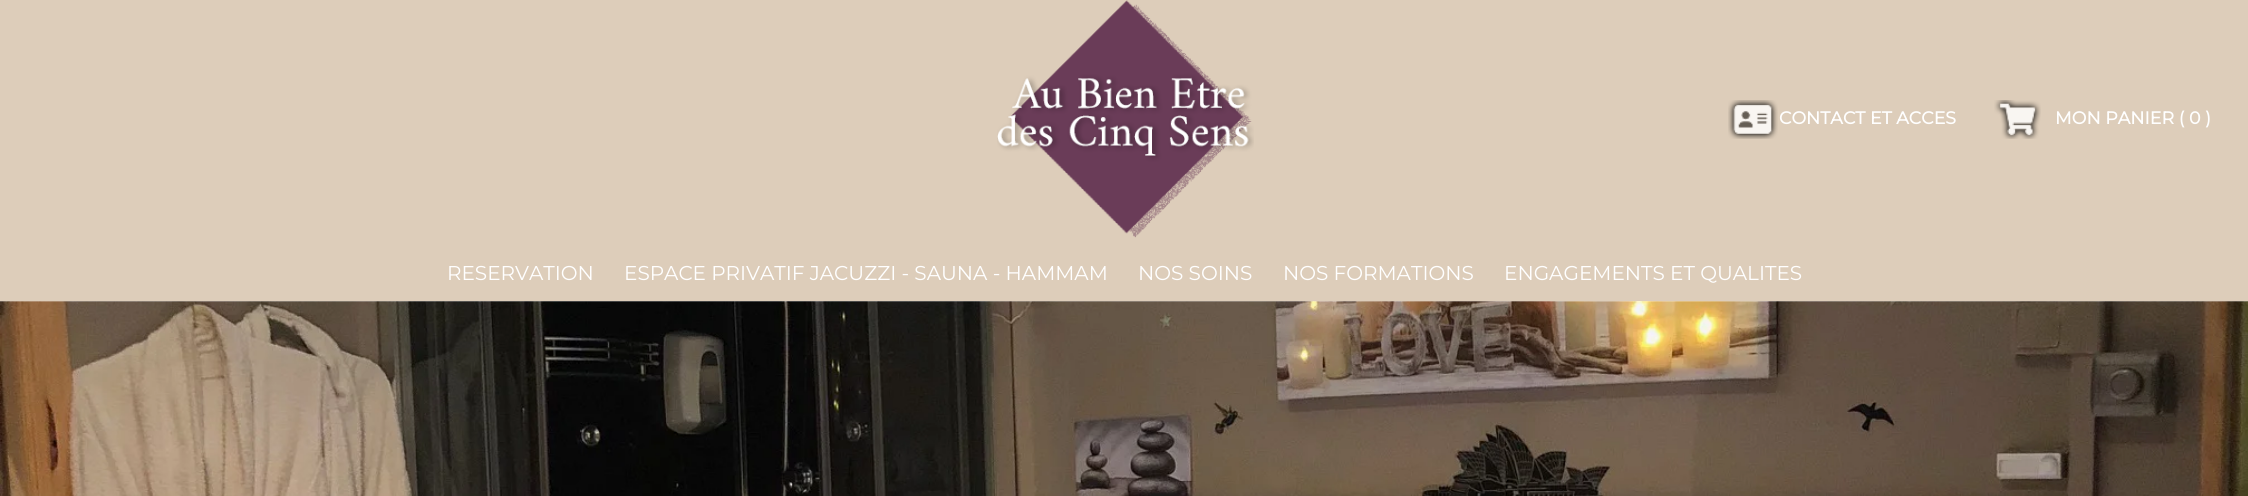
#include <cairo/cairo.h>
#include <math.h>
#include <stddef.h>

static cairo_t *cr;

static void use_color(int r, int g, int b) {
  cairo_set_source_rgb(cr, r / 255.0, g / 255.0, b / 255.0);
}

static void text(double x, double y, const char *s, const char *family, double size, int italic, int bold, int r, int g, int b) {
  cairo_select_font_face(cr, family, italic ? CAIRO_FONT_SLANT_ITALIC : CAIRO_FONT_SLANT_NORMAL,
    bold ? CAIRO_FONT_WEIGHT_BOLD : CAIRO_FONT_WEIGHT_NORMAL);
  cairo_set_font_size(cr, size);
  use_color(r, g, b);
  cairo_move_to(cr, x, y);
  cairo_show_text(cr, s);
}

static void box(double x, double y, double w, double h, int r, int g, int b) {
  use_color(r, g, b);
  cairo_rectangle(cr, x, y, w, h);
  cairo_fill(cr);
}

static void picture(const char *path, double x, double y, double w, double h) {
  cairo_surface_t *image = cairo_image_surface_create_from_png(path);
  cairo_save(cr);
  cairo_set_source_surface(cr, image, x, y);
  cairo_rectangle(cr, x, y, w, h);
  cairo_fill(cr);
  cairo_restore(cr);
  cairo_surface_destroy(image);
}

static void draw(void) {
  use_color(255, 255, 255);
  cairo_paint(cr);
  box(0, 0, 2248, 301, 221, 205, 186);
  picture("img_01.png", 1728, 100, 50, 39);
  picture("img_02.png", 1994, 100, 47, 39);
  picture("img_03.png", 997, 0, 257, 238);
  picture("img_04.png", 0, 301, 2248, 195);
  text(1779, 124, "CONTACT ET ACCES", "Montserrat", 17.5, 0, 1, 255, 255, 255);
  text(2055, 124, "MON PANIER ( 0 )", "Montserrat", 17.5, 0, 1, 255, 255, 255);
  text(447, 280, "RESERVATION", "Montserrat Thin", 20, 0, 0, 255, 255, 255);
  text(624, 280, "ESPACE PRIVATIF JACUZZI - SAUNA - HAMMAM", "Montserrat Thin", 20, 0, 0, 255, 255, 255);
  text(1138, 280, "NOS SOINS", "Montserrat Thin", 20, 0, 0, 255, 255, 255);
  text(1283, 280, "NOS FORMATIONS", "Montserrat Thin", 20, 0, 0, 255, 255, 255);
  text(1504, 280, "ENGAGEMENTS ET QUALITES", "Montserrat Thin", 20, 0, 0, 255, 255, 255);
}

int main(void) {
  cairo_surface_t *surface = cairo_image_surface_create(CAIRO_FORMAT_RGB24, 2248, 496);
  cr = cairo_create(surface);
  cairo_font_options_t *options = cairo_font_options_create();
  cairo_font_options_set_hint_metrics(options, CAIRO_HINT_METRICS_OFF);
  cairo_font_options_set_hint_style(options, CAIRO_HINT_STYLE_NONE);
  cairo_set_font_options(cr, options);
  cairo_set_miter_limit(cr, 4);
  draw();
  cairo_surface_write_to_png(surface, "out.png");
  cairo_font_options_destroy(options);
  cairo_destroy(cr);
  cairo_surface_destroy(surface);
  return 0;
}
